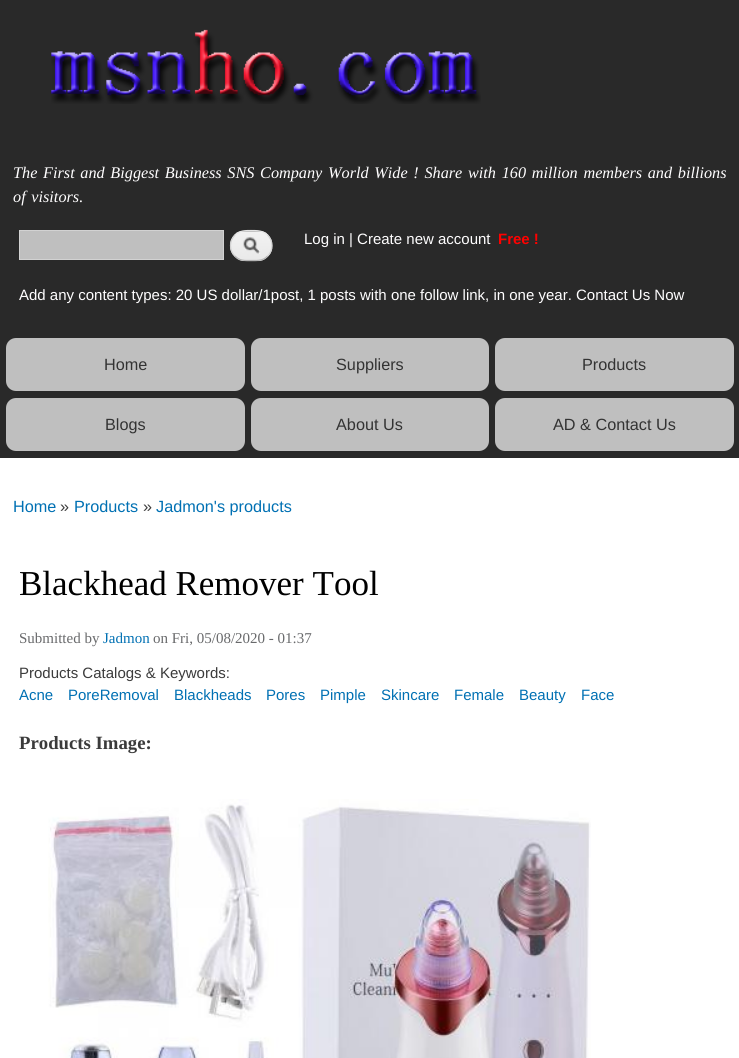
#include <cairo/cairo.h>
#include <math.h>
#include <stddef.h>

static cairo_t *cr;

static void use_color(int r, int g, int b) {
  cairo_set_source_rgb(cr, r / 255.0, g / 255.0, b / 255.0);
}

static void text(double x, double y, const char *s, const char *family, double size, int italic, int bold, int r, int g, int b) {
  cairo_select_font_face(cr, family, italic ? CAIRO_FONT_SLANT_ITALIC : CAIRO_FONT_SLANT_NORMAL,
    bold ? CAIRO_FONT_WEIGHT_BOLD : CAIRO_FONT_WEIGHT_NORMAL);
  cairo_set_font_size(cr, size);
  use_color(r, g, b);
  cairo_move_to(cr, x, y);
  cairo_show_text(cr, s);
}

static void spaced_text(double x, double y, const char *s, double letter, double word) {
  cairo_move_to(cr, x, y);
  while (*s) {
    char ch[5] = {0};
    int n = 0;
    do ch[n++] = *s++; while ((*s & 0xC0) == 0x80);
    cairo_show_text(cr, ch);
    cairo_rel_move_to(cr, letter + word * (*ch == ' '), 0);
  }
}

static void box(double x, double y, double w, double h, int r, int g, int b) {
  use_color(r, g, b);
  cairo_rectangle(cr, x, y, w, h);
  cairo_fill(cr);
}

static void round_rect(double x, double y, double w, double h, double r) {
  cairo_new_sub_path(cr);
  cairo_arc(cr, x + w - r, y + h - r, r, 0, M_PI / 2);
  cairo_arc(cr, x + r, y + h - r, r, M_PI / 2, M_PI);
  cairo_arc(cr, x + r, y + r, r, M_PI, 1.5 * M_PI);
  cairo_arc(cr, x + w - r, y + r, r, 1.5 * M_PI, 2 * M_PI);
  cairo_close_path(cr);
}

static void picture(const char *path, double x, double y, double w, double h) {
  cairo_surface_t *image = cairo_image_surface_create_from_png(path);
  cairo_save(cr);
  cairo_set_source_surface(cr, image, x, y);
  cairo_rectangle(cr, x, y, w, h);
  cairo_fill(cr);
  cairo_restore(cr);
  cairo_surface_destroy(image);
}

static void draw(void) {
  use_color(255, 255, 255);
  cairo_paint(cr);
  box(0, 0, 739, 458, 41, 41, 41);
  picture("img_01.png", 51, 29, 430, 75);
  use_color(191, 191, 191);
  cairo_rectangle(cr, 19.5, 230.5, 204, 29);
  cairo_fill_preserve(cr);
  use_color(210, 210, 210);
  cairo_set_line_width(cr, 1);
  cairo_stroke(cr);
  picture("img_02.png", 230, 231, 43, 31);
  cairo_new_path(cr);
  cairo_move_to(cr, 235, 235);
  cairo_curve_to(cr, 239.5, 230.5, 245, 230.5, 251, 230.5);
  cairo_curve_to(cr, 257.5, 230.5, 263, 230.5, 267.5, 235);
  use_color(228, 228, 228);
  cairo_set_line_width(cr, 1.2);
  cairo_stroke(cr);
  cairo_new_path(cr);
  cairo_move_to(cr, 267.5, 235);
  cairo_curve_to(cr, 273.5, 241, 273.5, 250.5, 267.5, 256);
  use_color(210, 210, 210);
  cairo_stroke(cr);
  cairo_new_path(cr);
  cairo_move_to(cr, 267.5, 256);
  cairo_curve_to(cr, 263, 261, 257.5, 260.5, 251, 260.5);
  cairo_curve_to(cr, 245, 260.5, 239.5, 261, 235, 256);
  use_color(180, 180, 180);
  cairo_stroke(cr);
  cairo_new_path(cr);
  cairo_move_to(cr, 235, 256);
  cairo_curve_to(cr, 229, 250.5, 229, 241, 235, 235);
  use_color(210, 210, 210);
  cairo_stroke(cr);
  use_color(191, 191, 191);
  round_rect(6, 338, 239, 53, 10);
  cairo_fill(cr);
  round_rect(251, 338, 238, 53, 10);
  cairo_fill(cr);
  round_rect(495, 338, 239, 53, 10);
  cairo_fill(cr);
  round_rect(6, 398, 239, 53, 10);
  cairo_fill(cr);
  round_rect(251, 398, 238, 53, 10);
  cairo_fill(cr);
  round_rect(495, 398, 239, 53, 10);
  cairo_fill(cr);
  picture("img_03.png", 48, 799, 543, 259);
  cairo_select_font_face(cr, "Liberation Serif", CAIRO_FONT_SLANT_ITALIC, CAIRO_FONT_WEIGHT_NORMAL);
  cairo_set_font_size(cr, 16.25);
  use_color(255, 254, 255);
  spaced_text(13, 178, "The First and Biggest Business SNS Company World Wide ! Share with 160 million members and billions", 0, 1.6);
  spaced_text(13, 202, "of visitors.", 0, 1.6);
  text(304, 244, "Log in | Create new account", "Liberation Sans", 15, 0, 0, 255, 254, 255);
  text(498, 244, "Free !", "Liberation Sans", 15, 0, 1, 255, 0, 0);
  text(19, 300, "Add any content types: 20 US dollar/1post, 1 posts with one follow link, in one year. Contact Us Now", "Liberation Sans", 15, 0, 0, 255, 254, 255);
  text(104, 370, "Home", "Liberation Sans", 16.25, 0, 0, 51, 51, 51);
  text(336, 370, "Suppliers", "Liberation Sans", 16.25, 0, 0, 51, 51, 51);
  text(582, 370, "Products", "Liberation Sans", 16.25, 0, 0, 51, 51, 51);
  text(105, 430, "Blogs", "Liberation Sans", 16.25, 0, 0, 51, 51, 51);
  text(336, 430, "About Us", "Liberation Sans", 16.25, 0, 0, 51, 51, 51);
  text(553, 430, "AD & Contact Us", "Liberation Sans", 16.25, 0, 0, 51, 51, 51);
  text(13, 512, "Home", "Liberation Sans", 16.25, 0, 0, 0, 112, 179);
  text(60, 512, "»", "Liberation Sans", 16.25, 0, 0, 59, 59, 59);
  text(74, 512, "Products", "Liberation Sans", 16.25, 0, 0, 0, 112, 179);
  text(143, 512, "»", "Liberation Sans", 16.25, 0, 0, 59, 59, 59);
  text(156, 512, "Jadmon's products", "Liberation Sans", 16.25, 0, 0, 0, 112, 179);
  text(19, 595, "Blackhead Remover Tool", "Liberation Serif", 35, 0, 0, 0, 0, 0);
  text(19, 643, "Submitted by", "Liberation Serif", 15, 0, 0, 104, 105, 107);
  text(103, 643, "Jadmon", "Liberation Serif", 15, 0, 0, 0, 112, 179);
  text(153, 643, "on Fri, 05/08/2020 - 01:37", "Liberation Serif", 15, 0, 0, 104, 105, 107);
  text(19, 678, "Products Catalogs & Keywords:", "Liberation Sans", 15, 0, 0, 59, 59, 59);
  text(19, 700, "Acne", "Liberation Sans", 15, 0, 0, 0, 112, 179);
  text(68, 700, "PoreRemoval", "Liberation Sans", 15, 0, 0, 0, 112, 179);
  text(174, 700, "Blackheads", "Liberation Sans", 15, 0, 0, 0, 112, 179);
  text(266, 700, "Pores", "Liberation Sans", 15, 0, 0, 0, 112, 179);
  text(320, 700, "Pimple", "Liberation Sans", 15, 0, 0, 0, 112, 179);
  text(381, 700, "Skincare", "Liberation Sans", 15, 0, 0, 0, 112, 179);
  text(454, 700, "Female", "Liberation Sans", 15, 0, 0, 0, 112, 179);
  text(519, 700, "Beauty", "Liberation Sans", 15, 0, 0, 0, 112, 179);
  text(581, 700, "Face", "Liberation Sans", 15, 0, 0, 0, 112, 179);
  text(19, 749, "Products Image:", "Liberation Serif", 18.75, 0, 1, 59, 59, 59);
}

int main(void) {
  cairo_surface_t *surface = cairo_image_surface_create(CAIRO_FORMAT_RGB24, 739, 1058);
  cr = cairo_create(surface);
  cairo_font_options_t *options = cairo_font_options_create();
  cairo_font_options_set_hint_metrics(options, CAIRO_HINT_METRICS_OFF);
  cairo_font_options_set_hint_style(options, CAIRO_HINT_STYLE_NONE);
  cairo_set_font_options(cr, options);
  cairo_set_miter_limit(cr, 4);
  draw();
  cairo_surface_write_to_png(surface, "out.png");
  cairo_font_options_destroy(options);
  cairo_destroy(cr);
  cairo_surface_destroy(surface);
  return 0;
}
